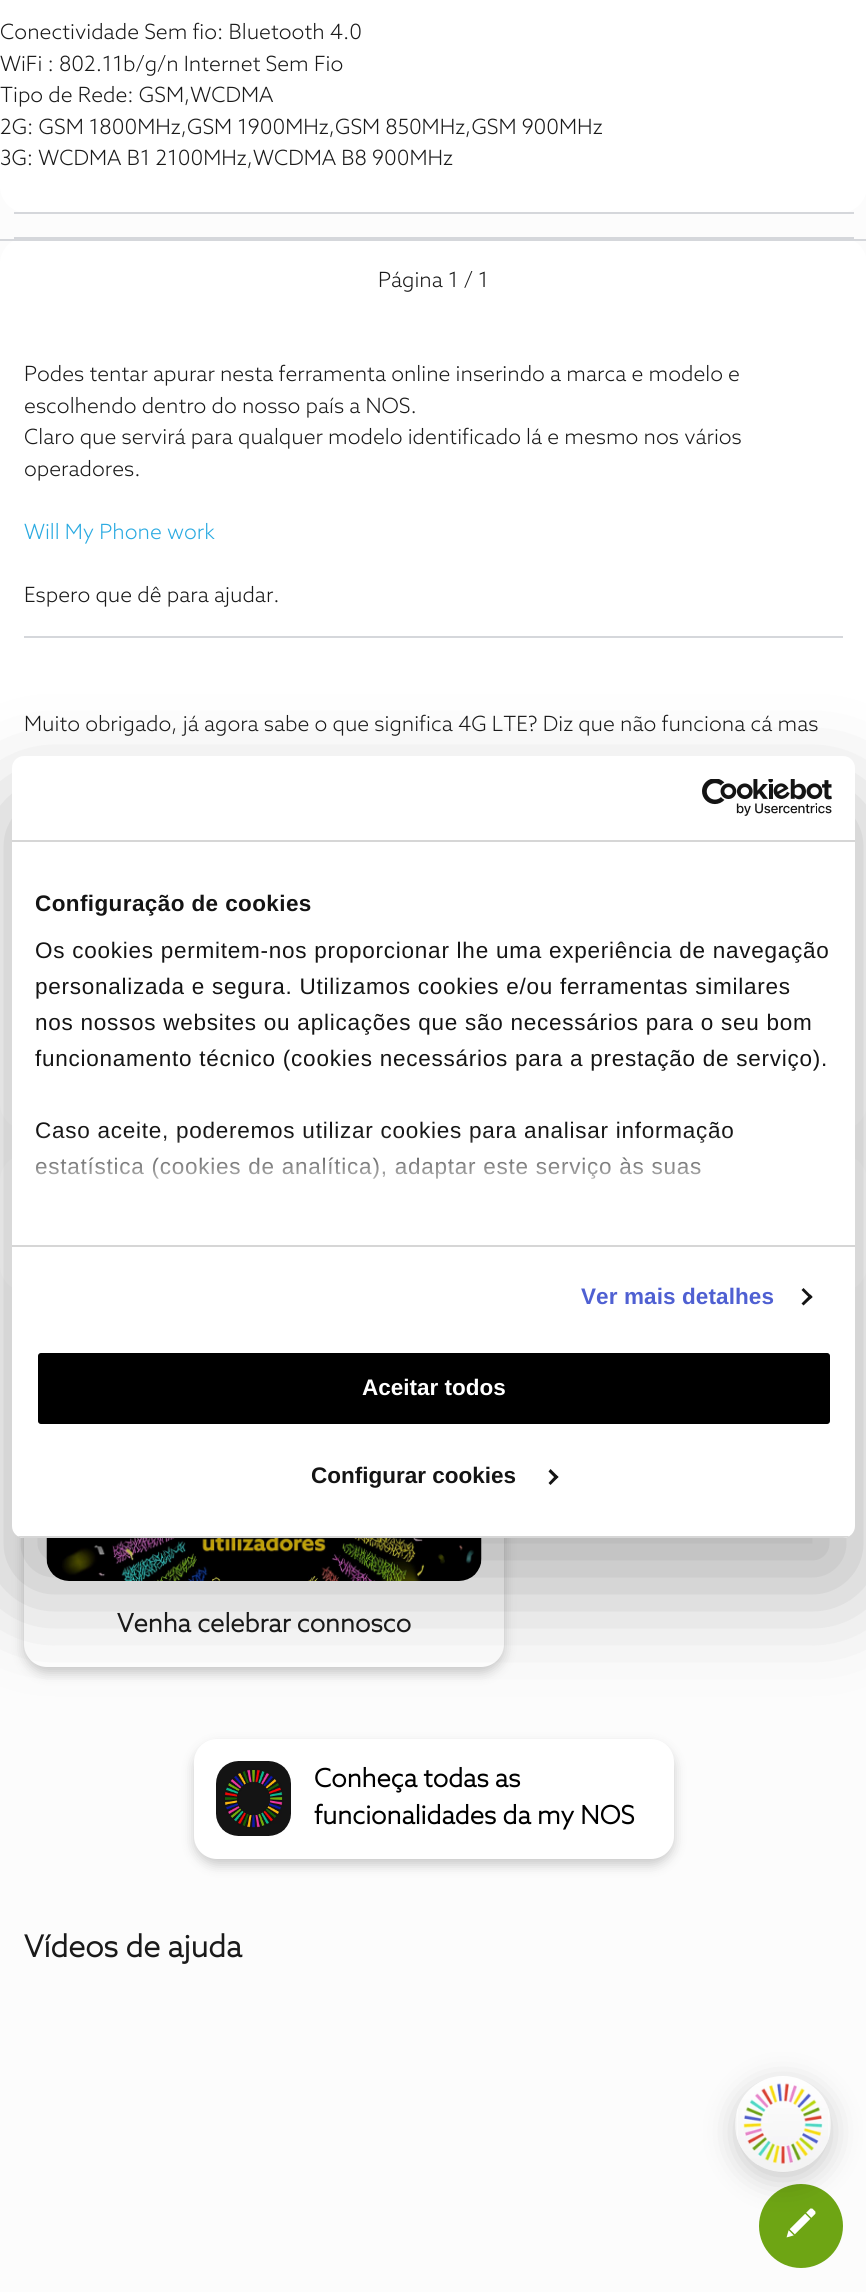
#include <cairo/cairo.h>
#include <math.h>
#include <stddef.h>

static cairo_t *cr;

static void use_color(int r, int g, int b) {
  cairo_set_source_rgb(cr, r / 255.0, g / 255.0, b / 255.0);
}

static void text(double x, double y, const char *s, const char *family, double size, int italic, int bold, int r, int g, int b) {
  cairo_select_font_face(cr, family, italic ? CAIRO_FONT_SLANT_ITALIC : CAIRO_FONT_SLANT_NORMAL,
    bold ? CAIRO_FONT_WEIGHT_BOLD : CAIRO_FONT_WEIGHT_NORMAL);
  cairo_set_font_size(cr, size);
  use_color(r, g, b);
  cairo_move_to(cr, x, y);
  cairo_show_text(cr, s);
}

static void spaced_text(double x, double y, const char *s, double letter, double word) {
  cairo_move_to(cr, x, y);
  while (*s) {
    char ch[5] = {0};
    int n = 0;
    do ch[n++] = *s++; while ((*s & 0xC0) == 0x80);
    cairo_show_text(cr, ch);
    cairo_rel_move_to(cr, letter + word * (*ch == ' '), 0);
  }
}

static void box(double x, double y, double w, double h, int r, int g, int b) {
  use_color(r, g, b);
  cairo_rectangle(cr, x, y, w, h);
  cairo_fill(cr);
}

static void round_rect(double x, double y, double w, double h, double r) {
  cairo_new_sub_path(cr);
  cairo_arc(cr, x + w - r, y + h - r, r, 0, M_PI / 2);
  cairo_arc(cr, x + r, y + h - r, r, M_PI / 2, M_PI);
  cairo_arc(cr, x + r, y + r, r, M_PI, 1.5 * M_PI);
  cairo_arc(cr, x + w - r, y + r, r, 1.5 * M_PI, 2 * M_PI);
  cairo_close_path(cr);
}

static void shadow(double x, double y, double w, double h, double r, double blur, double alpha) {
  cairo_push_group_with_content(cr, CAIRO_CONTENT_ALPHA);
  cairo_set_operator(cr, CAIRO_OPERATOR_SOURCE);
  for (int i = 15; i >= -15 && fmin(w, h) + blur * i / 3 > 0; i -= 2) {
    double e = blur * i / 6;
    cairo_set_source_rgba(cr, 0, 0, 0, alpha * erfc((i - 1) / 8.5) / 2);
    round_rect(x - e, y - e, w + 2 * e, h + 2 * e, fmax(0, fmin(r + e + blur * .6, fmin(w, h) / 2 + e)));
    cairo_fill(cr);
  }
  cairo_pattern_t *soft = cairo_pop_group(cr);
  cairo_mask(cr, soft);
  cairo_pattern_destroy(soft);
}

static void picture(const char *path, double x, double y, double w, double h) {
  cairo_surface_t *image = cairo_image_surface_create_from_png(path);
  cairo_save(cr);
  cairo_set_source_surface(cr, image, x, y);
  cairo_rectangle(cr, x, y, w, h);
  cairo_fill(cr);
  cairo_restore(cr);
  cairo_surface_destroy(image);
}

static void draw(void) {
  cairo_pattern_t *gradient;
  use_color(252, 252, 252);
  cairo_paint(cr);
  use_color(255, 255, 255);
  round_rect(0, -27, 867, 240, 27);
  cairo_fill(cr);
  box(14, 212, 840, 2, 213, 215, 219);
  use_color(255, 255, 255);
  round_rect(0, 237, 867, 893, 27);
  cairo_fill(cr);
  box(14, 237, 840, 2, 213, 215, 219);
  box(0, 239, 866, 2, 213, 215, 219);
  box(24, 636, 819, 2, 213, 215, 219);
  use_color(255, 255, 255);
  round_rect(0, 1154, 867, 138, 27);
  cairo_fill(cr);
  use_color(0, 0, 0);
  shadow(24, 1382, 480, 291, 23, 6, 0.2);
  use_color(255, 255, 255);
  round_rect(24, 1376, 480, 291, 23);
  cairo_fill(cr);
  picture("img_01.png", 46, 1538, 436, 43);
  use_color(0, 0, 0);
  shadow(194, 1745, 480, 120, 23, 6, 0.2);
  use_color(255, 255, 255);
  round_rect(194, 1739, 480, 120, 23);
  cairo_fill(cr);
  picture("img_02.png", 216, 1761, 75, 75);
  use_color(110, 165, 20);
  cairo_arc(cr, 801, 2226, 40.5, 0, 2 * M_PI);
  cairo_fill_preserve(cr);
  cairo_set_line_width(cr, 3);
  cairo_stroke(cr);
  picture("img_04.png", 786, 2208, 30, 30);
  use_color(0, 0, 0);
  shadow(735, 2084, 96, 96, 48, 15, 0.2);
  use_color(243, 243, 243);
  cairo_arc(cr, 783, 2124, 48, 0, 2 * M_PI);
  cairo_fill(cr);
  picture("img_03.png", 736, 2076, 94, 89);
  use_color(0, 0, 0);
  shadow(12, 804, 843, 782, 12, 51, 0.3);
  use_color(255, 255, 255);
  round_rect(12, 756, 843, 782, 12);
  cairo_fill(cr);
  box(12, 840, 843, 2, 214, 214, 214);
  picture("img_05.png", 702, 779, 130, 37);
  box(12, 1245, 843, 2, 214, 214, 214);
  use_color(20, 20, 20);
  cairo_new_path(cr);
  cairo_move_to(cr, 803.5, 1288);
  cairo_line_to(cr, 812.5, 1297);
  cairo_line_to(cr, 810.5, 1299);
  cairo_line_to(cr, 801.5, 1290);
  cairo_close_path(cr);
  cairo_fill(cr);
  cairo_new_path(cr);
  cairo_move_to(cr, 810.5, 1294.5);
  cairo_line_to(cr, 812.5, 1297);
  cairo_line_to(cr, 803.5, 1305.5);
  cairo_line_to(cr, 801.5, 1303.5);
  cairo_close_path(cr);
  cairo_fill(cr);
  cairo_save(cr);
  round_rect(12, 756, 843, 782, 12);
  cairo_clip(cr);
  box(12, 1536, 843, 2, 214, 214, 214);
  cairo_restore(cr);
  use_color(0, 0, 0);
  round_rect(36.5, 1351.5, 795, 74, 4.5);
  cairo_fill_preserve(cr);
  use_color(255, 255, 255);
  cairo_stroke(cr);
  use_color(20, 20, 20);
  cairo_new_path(cr);
  cairo_move_to(cr, 550.5, 1469);
  cairo_line_to(cr, 558.5, 1477);
  cairo_line_to(cr, 556, 1479);
  cairo_line_to(cr, 548.5, 1471.5);
  cairo_close_path(cr);
  cairo_fill(cr);
  cairo_new_path(cr);
  cairo_move_to(cr, 556, 1475);
  cairo_line_to(cr, 558.5, 1477);
  cairo_line_to(cr, 550.5, 1485);
  cairo_line_to(cr, 548.5, 1483);
  cairo_close_path(cr);
  cairo_fill(cr);
  text(0, 39, "Conectividade Sem fio: Bluetooth 4.0", "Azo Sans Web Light", 21, 0, 0, 26, 26, 26);
  text(0, 71, "WiFi : 802.11b/g/n Internet Sem Fio", "Azo Sans Web Light", 21, 0, 0, 26, 26, 26);
  text(0, 102, "Tipo de Rede: GSM,WCDMA", "Azo Sans Web Light", 21, 0, 0, 26, 26, 26);
  text(0, 134, "2G: GSM 1800MHz,GSM 1900MHz,GSM 850MHz,GSM 900MHz", "Azo Sans Web Light", 21, 0, 0, 26, 26, 26);
  text(0, 165, "3G: WCDMA B1 2100MHz,WCDMA B8 900MHz", "Azo Sans Web Light", 21, 0, 0, 26, 26, 26);
  text(378, 287, "Página 1 / 1", "Azo Sans Web Light", 21, 0, 0, 26, 26, 26);
  text(24, 381, "Podes tentar apurar nesta ferramenta online inserindo a marca e modelo e", "Azo Sans Web Light", 21, 0, 0, 26, 26, 26);
  text(24, 413, "escolhendo dentro do nosso país a NOS.", "Azo Sans Web Light", 21, 0, 0, 26, 26, 26);
  text(24, 444, "Claro que servirá para qualquer modelo identificado lá e mesmo nos vários", "Azo Sans Web Light", 21, 0, 0, 26, 26, 26);
  text(24, 476, "operadores.", "Azo Sans Web Light", 21, 0, 0, 26, 26, 26);
  text(24, 539, "Will My Phone work", "Azo Sans Web Light", 21, 0, 0, 42, 170, 225);
  text(24, 602, "Espero que dê para ajudar.", "Azo Sans Web Light", 21, 0, 0, 26, 26, 26);
  text(24, 731, "Muito obrigado, já agora sabe o que significa 4G LTE? Diz que não funciona cá mas", "Azo Sans Web Light", 21, 0, 0, 26, 26, 26);
  text(117, 1632, "Venha celebrar connosco", "Azo Sans Web", 25.25, 0, 1, 26, 26, 26);
  text(314, 1787, "Conheça todas as", "Azo Sans Web", 25.25, 0, 1, 0, 0, 0);
  text(314, 1824, "funcionalidades da my NOS", "Azo Sans Web", 25.25, 0, 1, 0, 0, 0);
  text(24, 1957, "Vídeos de ajuda", "Azo Sans Web", 30, 0, 1, 26, 26, 26);
  cairo_select_font_face(cr, "Liberation Sans", CAIRO_FONT_SLANT_NORMAL, CAIRO_FONT_WEIGHT_BOLD);
  cairo_set_font_size(cr, 22.5);
  use_color(20, 20, 20);
  spaced_text(35, 911, "Configuração de cookies", 0.4, 0);
  cairo_select_font_face(cr, "Liberation Sans", CAIRO_FONT_SLANT_NORMAL, CAIRO_FONT_WEIGHT_NORMAL);
  spaced_text(35, 958, "Os cookies permitem-nos proporcionar lhe uma experiência de navegação", 0.75, 0);
  spaced_text(35, 994, "personalizada e segura. Utilizamos cookies e/ou ferramentas similares", 0.75, 0);
  spaced_text(35, 1030, "nos nossos websites ou aplicações que são necessários para o seu bom", 0.75, 0);
  spaced_text(35, 1066, "funcionamento técnico (cookies necessários para a prestação de serviço).", 0.75, 0);
  spaced_text(35, 1138, "Caso aceite, poderemos utilizar cookies para analisar informação", 0.75, 0);
  spaced_text(35, 1174, "estatística (cookies de analítica), adaptar este serviço às suas", 0.75, 0);
  gradient = cairo_pattern_create_linear(424, 1244, 424, 1132);
  cairo_pattern_add_color_stop_rgba(gradient, 0, 1, 1, 1, 1);
  cairo_pattern_add_color_stop_rgba(gradient, 0.5, 1, 1, 1, 0.8);
  cairo_pattern_add_color_stop_rgba(gradient, 1, 1, 1, 1, 0);
  cairo_set_source(cr, gradient);
  cairo_pattern_destroy(gradient);
  cairo_rectangle(cr, 35, 1134, 697, 45);
  cairo_fill(cr);
  cairo_select_font_face(cr, "Liberation Sans", CAIRO_FONT_SLANT_NORMAL, CAIRO_FONT_WEIGHT_BOLD);
  use_color(79, 96, 210);
  spaced_text(581, 1304, "Ver mais detalhes", 0.1, 0);
  text(362, 1395, "Aceitar todos", "Liberation Sans", 22.5, 0, 1, 255, 255, 255);
  text(311, 1483, "Configurar cookies", "Liberation Sans", 22.5, 0, 1, 20, 20, 20);
}

int main(void) {
  cairo_surface_t *surface = cairo_image_surface_create(CAIRO_FORMAT_RGB24, 866, 2292);
  cr = cairo_create(surface);
  cairo_font_options_t *options = cairo_font_options_create();
  cairo_font_options_set_hint_metrics(options, CAIRO_HINT_METRICS_OFF);
  cairo_font_options_set_hint_style(options, CAIRO_HINT_STYLE_NONE);
  cairo_set_font_options(cr, options);
  cairo_set_miter_limit(cr, 4);
  draw();
  cairo_surface_write_to_png(surface, "out.png");
  cairo_font_options_destroy(options);
  cairo_destroy(cr);
  cairo_surface_destroy(surface);
  return 0;
}
